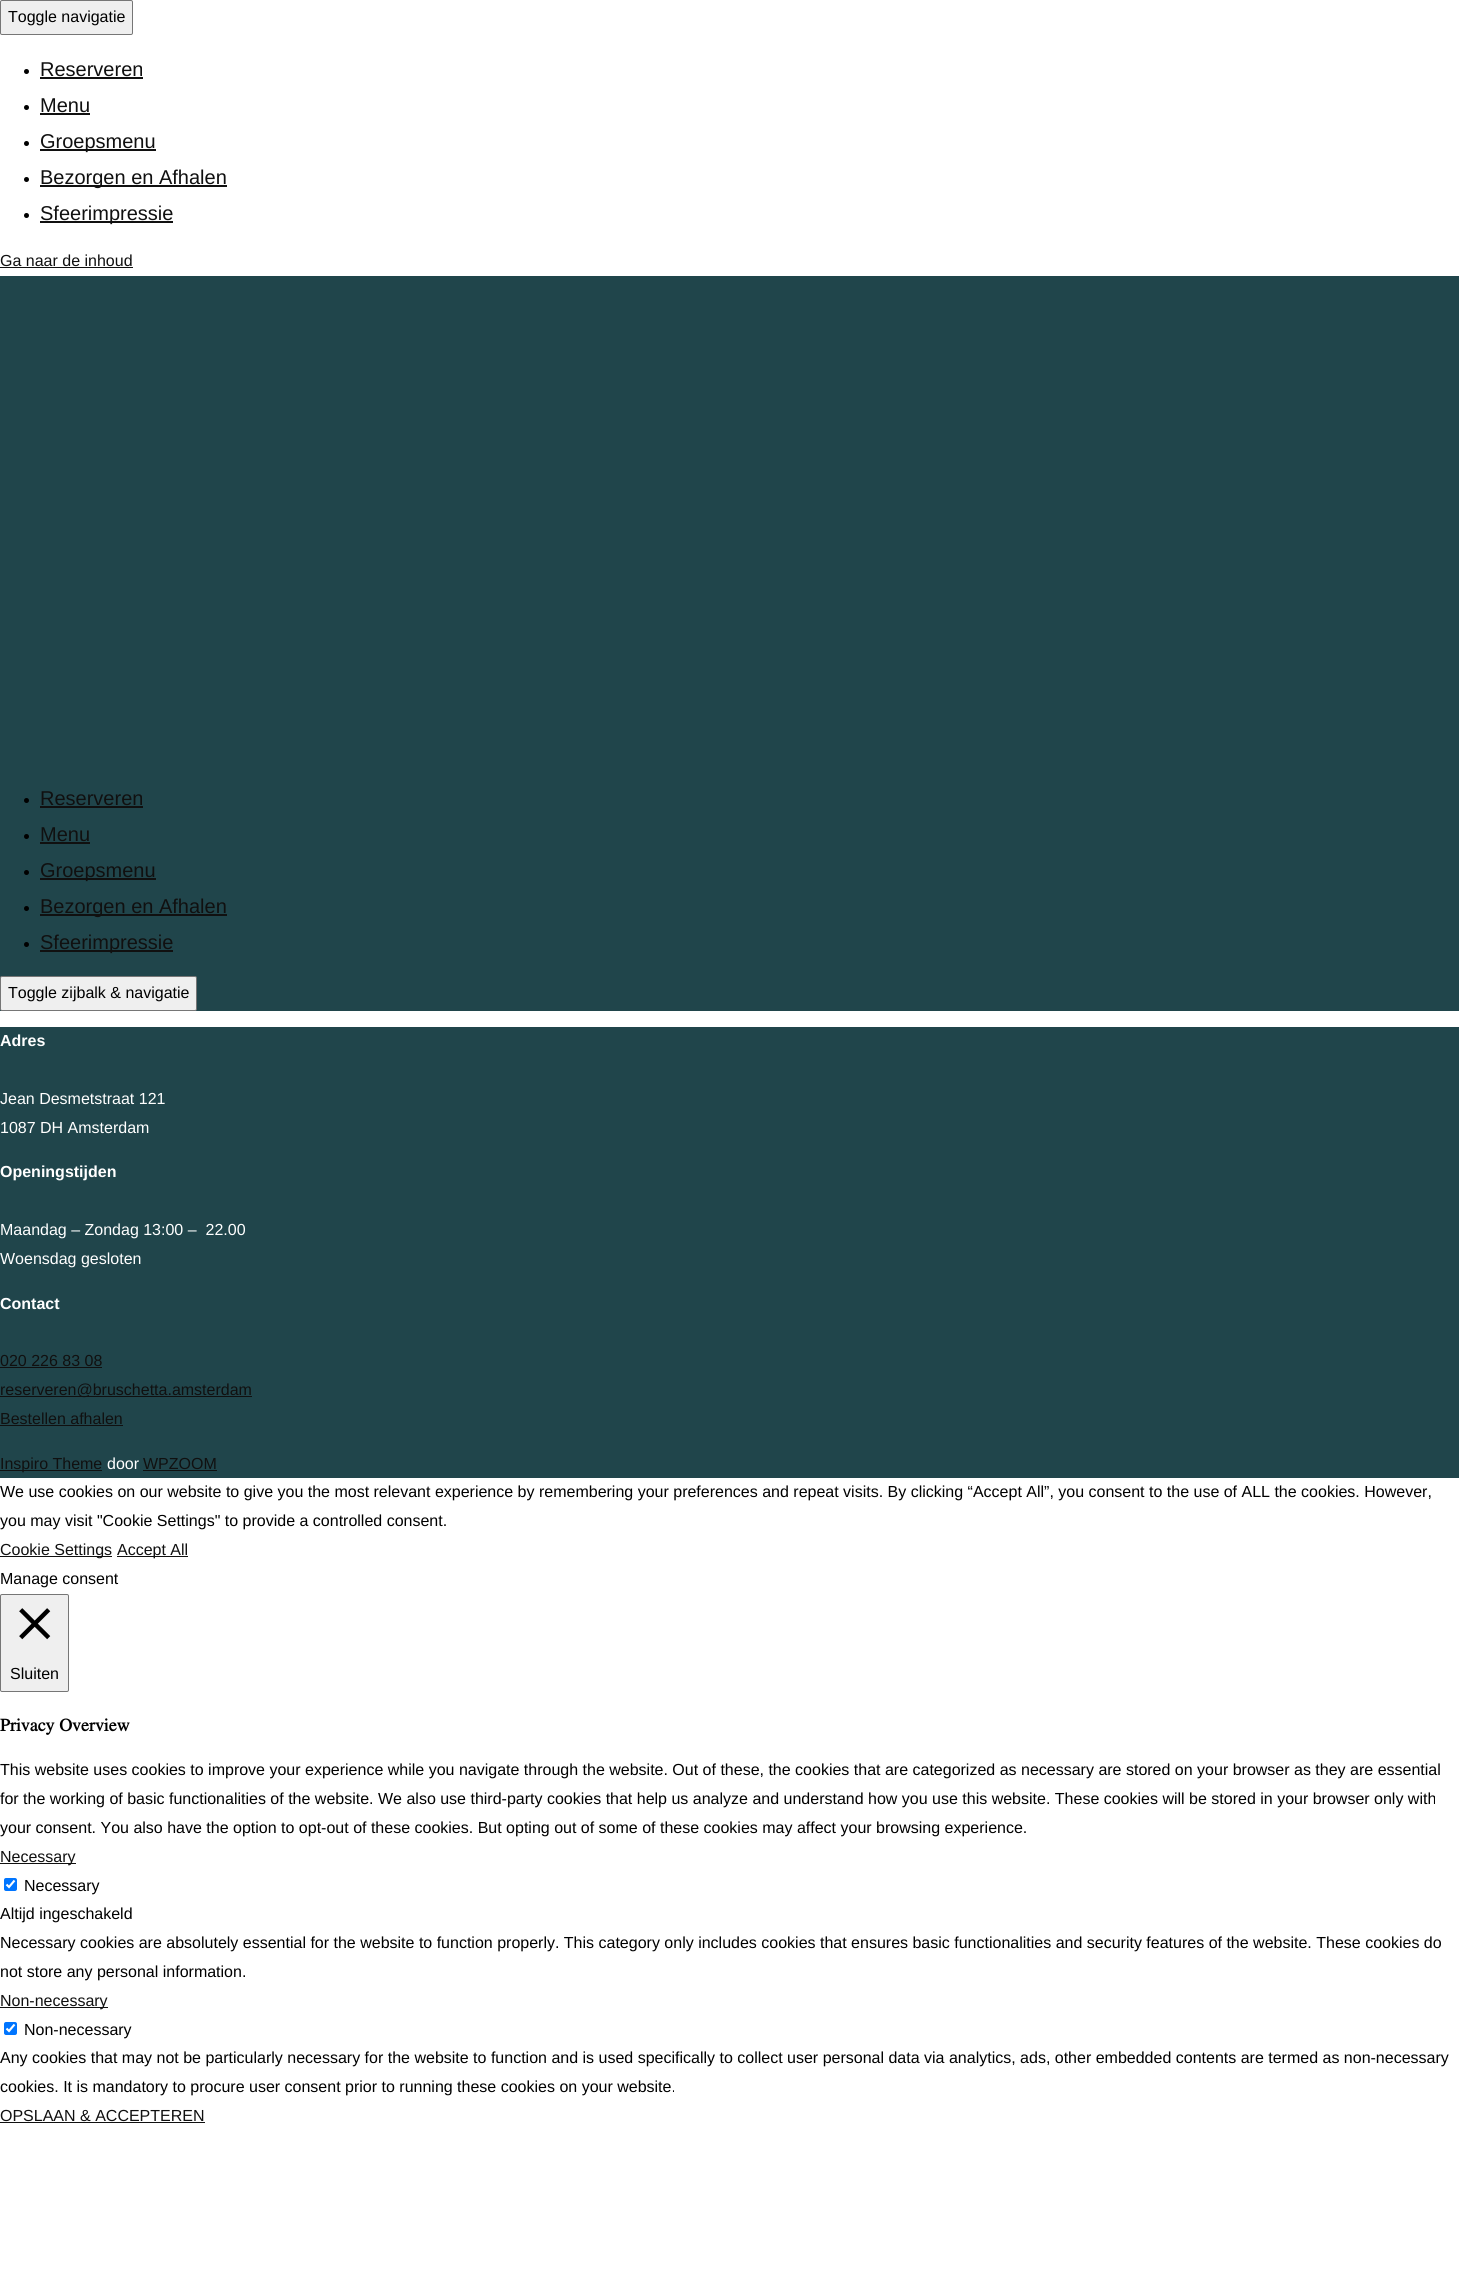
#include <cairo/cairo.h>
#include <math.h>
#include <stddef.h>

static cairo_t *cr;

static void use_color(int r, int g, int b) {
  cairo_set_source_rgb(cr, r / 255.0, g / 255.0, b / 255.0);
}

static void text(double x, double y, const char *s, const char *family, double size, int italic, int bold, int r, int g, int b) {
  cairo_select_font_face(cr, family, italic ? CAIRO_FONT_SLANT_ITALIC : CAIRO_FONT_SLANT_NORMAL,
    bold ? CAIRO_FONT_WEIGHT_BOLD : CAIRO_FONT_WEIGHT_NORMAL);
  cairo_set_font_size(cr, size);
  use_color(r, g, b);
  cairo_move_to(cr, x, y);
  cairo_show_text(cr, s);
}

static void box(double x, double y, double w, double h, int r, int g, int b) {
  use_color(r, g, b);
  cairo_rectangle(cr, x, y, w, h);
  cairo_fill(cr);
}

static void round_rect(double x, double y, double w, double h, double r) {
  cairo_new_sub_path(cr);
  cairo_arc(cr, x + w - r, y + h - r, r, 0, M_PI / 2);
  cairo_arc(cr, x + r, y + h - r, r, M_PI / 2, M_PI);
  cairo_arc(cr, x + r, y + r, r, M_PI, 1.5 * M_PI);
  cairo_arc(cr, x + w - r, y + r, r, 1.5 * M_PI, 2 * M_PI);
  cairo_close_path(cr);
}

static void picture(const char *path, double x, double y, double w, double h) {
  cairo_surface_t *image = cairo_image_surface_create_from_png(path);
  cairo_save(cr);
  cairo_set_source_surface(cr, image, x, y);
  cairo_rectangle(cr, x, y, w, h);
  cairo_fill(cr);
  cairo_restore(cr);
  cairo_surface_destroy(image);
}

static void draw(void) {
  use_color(255, 255, 255);
  cairo_paint(cr);
  use_color(239, 239, 239);
  round_rect(0.5, 0.5, 132, 34, 1.5);
  cairo_fill_preserve(cr);
  use_color(118, 118, 118);
  cairo_set_line_width(cr, 1);
  cairo_stroke(cr);
  use_color(0, 0, 0);
  cairo_arc(cr, 26.5, 71.5, 2.5, 0, 2 * M_PI);
  cairo_fill(cr);
  box(40, 77, 103, 2, 16, 16, 16);
  use_color(0, 0, 0);
  cairo_arc(cr, 26.5, 107.5, 2.5, 0, 2 * M_PI);
  cairo_fill(cr);
  box(40, 113, 50, 2, 16, 16, 16);
  use_color(0, 0, 0);
  cairo_arc(cr, 26.5, 143.5, 2.5, 0, 2 * M_PI);
  cairo_fill(cr);
  box(40, 149, 116, 2, 16, 16, 16);
  use_color(0, 0, 0);
  cairo_arc(cr, 26.5, 179.5, 2.5, 0, 2 * M_PI);
  cairo_fill(cr);
  box(40, 185, 187, 2, 16, 16, 16);
  use_color(0, 0, 0);
  cairo_arc(cr, 26.5, 215.5, 2.5, 0, 2 * M_PI);
  cairo_fill(cr);
  box(40, 221, 133, 2, 16, 16, 16);
  box(0, 267, 133, 1, 16, 16, 16);
  box(0, 276, 1459, 735, 32, 69, 75);
  use_color(0, 0, 0);
  cairo_arc(cr, 26.5, 800.5, 2.5, 0, 2 * M_PI);
  cairo_fill(cr);
  box(40, 806, 103, 2, 16, 16, 16);
  use_color(0, 0, 0);
  cairo_arc(cr, 26.5, 836.5, 2.5, 0, 2 * M_PI);
  cairo_fill(cr);
  box(40, 842, 50, 2, 16, 16, 16);
  use_color(0, 0, 0);
  cairo_arc(cr, 26.5, 872.5, 2.5, 0, 2 * M_PI);
  cairo_fill(cr);
  box(40, 878, 116, 2, 16, 16, 16);
  use_color(0, 0, 0);
  cairo_arc(cr, 26.5, 908.5, 2.5, 0, 2 * M_PI);
  cairo_fill(cr);
  box(40, 914, 187, 2, 16, 16, 16);
  use_color(0, 0, 0);
  cairo_arc(cr, 26.5, 944.5, 2.5, 0, 2 * M_PI);
  cairo_fill(cr);
  box(40, 950, 133, 2, 16, 16, 16);
  use_color(239, 239, 239);
  round_rect(0.5, 976.5, 196, 34, 1.5);
  cairo_fill_preserve(cr);
  use_color(118, 118, 118);
  cairo_stroke(cr);
  box(0, 1027, 1459, 451, 32, 69, 75);
  box(0, 1367, 102, 1, 16, 16, 16);
  box(0, 1396, 252, 1, 16, 16, 16);
  box(0, 1425, 123, 1, 16, 16, 16);
  box(0, 1470, 102, 1, 16, 16, 16);
  box(143, 1470, 74, 1, 16, 16, 16);
  box(0, 1556, 112, 1, 16, 16, 16);
  box(117, 1556, 71, 1, 16, 16, 16);
  use_color(239, 239, 239);
  round_rect(0.5, 1594.5, 68, 97, 1.5);
  cairo_fill_preserve(cr);
  use_color(118, 118, 118);
  cairo_stroke(cr);
  picture("img_01.png", 19, 1608, 32, 32);
  box(0, 1863, 76, 1, 16, 16, 16);
  use_color(0, 117, 255);
  round_rect(4, 1878, 13, 13, 2);
  cairo_fill(cr);
  cairo_new_path(cr);
  cairo_move_to(cr, 6.5, 1884.5);
  cairo_line_to(cr, 9, 1887);
  cairo_line_to(cr, 14.5, 1880.5);
  use_color(255, 255, 255);
  cairo_set_line_width(cr, 2.1);
  cairo_stroke(cr);
  box(0, 2007, 108, 1, 16, 16, 16);
  use_color(0, 117, 255);
  round_rect(4, 2022, 13, 13, 2);
  cairo_fill(cr);
  cairo_new_path(cr);
  cairo_move_to(cr, 6.5, 2028.5);
  cairo_line_to(cr, 9, 2031);
  cairo_line_to(cr, 14.5, 2024.5);
  use_color(255, 255, 255);
  cairo_stroke(cr);
  box(0, 2122, 205, 1, 16, 16, 16);
  text(8, 22, "Toggle navigatie", "Liberation Sans", 16, 0, 0, 0, 0, 0);
  text(40, 76, "Reserveren", "Liberation Sans", 20, 0, 0, 16, 16, 16);
  text(40, 112, "Menu", "Liberation Sans", 20, 0, 0, 16, 16, 16);
  text(40, 148, "Groepsmenu", "Liberation Sans", 20, 0, 0, 16, 16, 16);
  text(40, 184, "Bezorgen en Afhalen", "Liberation Sans", 20, 0, 0, 16, 16, 16);
  text(40, 220, "Sfeerimpressie", "Liberation Sans", 20, 0, 0, 16, 16, 16);
  text(0, 266, "Ga naar de inhoud", "Liberation Sans", 16, 0, 0, 16, 16, 16);
  text(40, 805, "Reserveren", "Liberation Sans", 20, 0, 0, 16, 16, 16);
  text(40, 841, "Menu", "Liberation Sans", 20, 0, 0, 16, 16, 16);
  text(40, 877, "Groepsmenu", "Liberation Sans", 20, 0, 0, 16, 16, 16);
  text(40, 913, "Bezorgen en Afhalen", "Liberation Sans", 20, 0, 0, 16, 16, 16);
  text(40, 949, "Sfeerimpressie", "Liberation Sans", 20, 0, 0, 16, 16, 16);
  text(8, 998, "Toggle zijbalk & navigatie", "Liberation Sans", 16, 0, 0, 0, 0, 0);
  text(0, 1046, "Adres", "Liberation Sans", 16, 0, 1, 255, 255, 255);
  text(0, 1104, "Jean Desmetstraat 121", "Liberation Sans", 16, 0, 0, 255, 255, 255);
  text(0, 1133, "1087 DH Amsterdam", "Liberation Sans", 16, 0, 0, 255, 255, 255);
  text(0, 1177, "Openingstijden", "Liberation Sans", 16, 0, 1, 255, 255, 255);
  text(0, 1235, "Maandag – Zondag 13:00 –  22.00", "Liberation Sans", 16, 0, 0, 255, 255, 255);
  text(0, 1264, "Woensdag gesloten", "Liberation Sans", 16, 0, 0, 255, 255, 255);
  text(0, 1309, "Contact", "Liberation Sans", 16, 0, 1, 255, 255, 255);
  text(0, 1366, "020 226 83 08", "Liberation Sans", 16, 0, 0, 16, 16, 16);
  text(0, 1395, "reserveren@bruschetta.amsterdam", "Liberation Sans", 16, 0, 0, 16, 16, 16);
  text(0, 1424, "Bestellen afhalen", "Liberation Sans", 16, 0, 0, 16, 16, 16);
  text(0, 1469, "Inspiro Theme", "Liberation Sans", 16, 0, 0, 16, 16, 16);
  text(107, 1469, "door", "Liberation Sans", 16, 0, 0, 255, 255, 255);
  text(143, 1469, "WPZOOM", "Liberation Sans", 16, 0, 0, 16, 16, 16);
  text(0, 1497, "We use cookies on our website to give you the most relevant experience by remembering your preferences and repeat visits. By clicking “Accept All”, you consent to the use of ALL the cookies. However,", "Liberation Sans", 16, 0, 0, 0, 0, 0);
  text(0, 1526, "you may visit \"Cookie Settings\" to provide a controlled consent.", "Liberation Sans", 16, 0, 0, 0, 0, 0);
  text(0, 1555, "Cookie Settings", "Liberation Sans", 16, 0, 0, 16, 16, 16);
  text(117, 1555, "Accept All", "Liberation Sans", 16, 0, 0, 16, 16, 16);
  text(0, 1584, "Manage consent", "Liberation Sans", 16, 0, 0, 0, 0, 0);
  text(10, 1679, "Sluiten", "Liberation Sans", 16, 0, 0, 0, 0, 0);
  text(0, 1731, "Privacy Overview", "Jomolhari", 16, 0, 1, 0, 0, 0);
  text(0, 1775, "This website uses cookies to improve your experience while you navigate through the website. Out of these, the cookies that are categorized as necessary are stored on your browser as they are essential", "Liberation Sans", 16, 0, 0, 0, 0, 0);
  text(0, 1804, "for the working of basic functionalities of the website. We also use third-party cookies that help us analyze and understand how you use this website. These cookies will be stored in your browser only with", "Liberation Sans", 16, 0, 0, 0, 0, 0);
  text(0, 1833, "your consent. You also have the option to opt-out of these cookies. But opting out of some of these cookies may affect your browsing experience.", "Liberation Sans", 16, 0, 0, 0, 0, 0);
  text(0, 1862, "Necessary", "Liberation Sans", 16, 0, 0, 16, 16, 16);
  text(24, 1891, "Necessary", "Liberation Sans", 16, 0, 0, 0, 0, 0);
  text(0, 1919, "Altijd ingeschakeld", "Liberation Sans", 16, 0, 0, 0, 0, 0);
  text(0, 1948, "Necessary cookies are absolutely essential for the website to function properly. This category only includes cookies that ensures basic functionalities and security features of the website. These cookies do", "Liberation Sans", 16, 0, 0, 0, 0, 0);
  text(0, 1977, "not store any personal information.", "Liberation Sans", 16, 0, 0, 0, 0, 0);
  text(0, 2006, "Non-necessary", "Liberation Sans", 16, 0, 0, 16, 16, 16);
  text(24, 2035, "Non-necessary", "Liberation Sans", 16, 0, 0, 0, 0, 0);
  text(0, 2063, "Any cookies that may not be particularly necessary for the website to function and is used specifically to collect user personal data via analytics, ads, other embedded contents are termed as non-necessary", "Liberation Sans", 16, 0, 0, 0, 0, 0);
  text(0, 2092, "cookies. It is mandatory to procure user consent prior to running these cookies on your website.", "Liberation Sans", 16, 0, 0, 0, 0, 0);
  text(0, 2121, "OPSLAAN & ACCEPTEREN", "Liberation Sans", 16, 0, 0, 16, 16, 16);
}

int main(void) {
  cairo_surface_t *surface = cairo_image_surface_create(CAIRO_FORMAT_RGB24, 1459, 2284);
  cr = cairo_create(surface);
  cairo_font_options_t *options = cairo_font_options_create();
  cairo_font_options_set_hint_metrics(options, CAIRO_HINT_METRICS_OFF);
  cairo_font_options_set_hint_style(options, CAIRO_HINT_STYLE_NONE);
  cairo_set_font_options(cr, options);
  cairo_set_miter_limit(cr, 4);
  draw();
  cairo_surface_write_to_png(surface, "out.png");
  cairo_font_options_destroy(options);
  cairo_destroy(cr);
  cairo_surface_destroy(surface);
  return 0;
}
